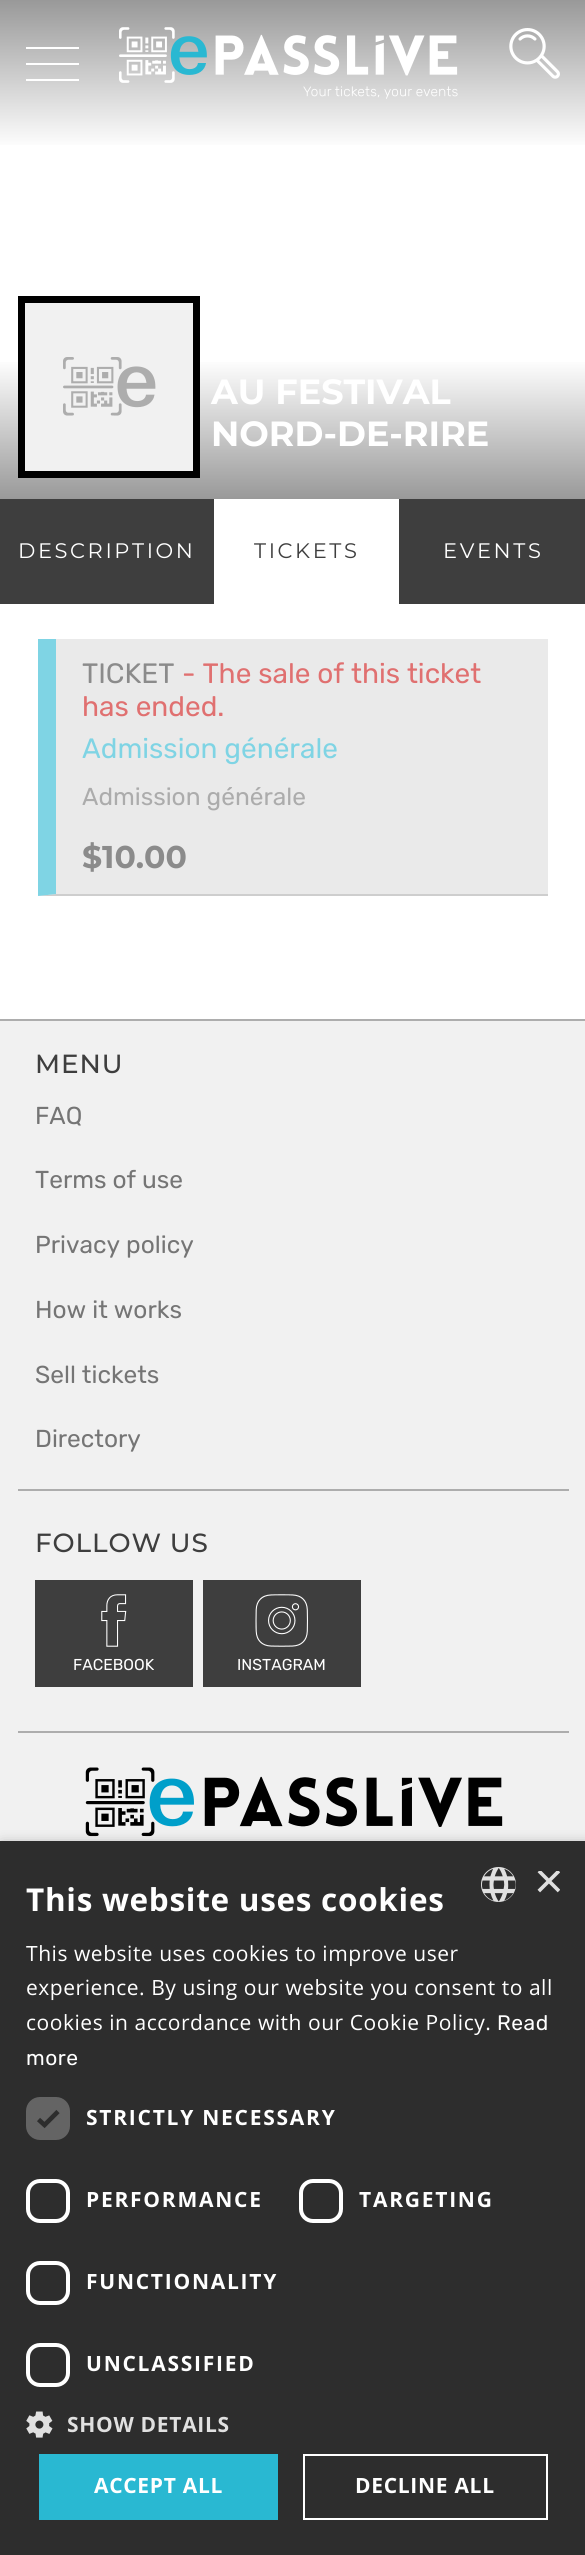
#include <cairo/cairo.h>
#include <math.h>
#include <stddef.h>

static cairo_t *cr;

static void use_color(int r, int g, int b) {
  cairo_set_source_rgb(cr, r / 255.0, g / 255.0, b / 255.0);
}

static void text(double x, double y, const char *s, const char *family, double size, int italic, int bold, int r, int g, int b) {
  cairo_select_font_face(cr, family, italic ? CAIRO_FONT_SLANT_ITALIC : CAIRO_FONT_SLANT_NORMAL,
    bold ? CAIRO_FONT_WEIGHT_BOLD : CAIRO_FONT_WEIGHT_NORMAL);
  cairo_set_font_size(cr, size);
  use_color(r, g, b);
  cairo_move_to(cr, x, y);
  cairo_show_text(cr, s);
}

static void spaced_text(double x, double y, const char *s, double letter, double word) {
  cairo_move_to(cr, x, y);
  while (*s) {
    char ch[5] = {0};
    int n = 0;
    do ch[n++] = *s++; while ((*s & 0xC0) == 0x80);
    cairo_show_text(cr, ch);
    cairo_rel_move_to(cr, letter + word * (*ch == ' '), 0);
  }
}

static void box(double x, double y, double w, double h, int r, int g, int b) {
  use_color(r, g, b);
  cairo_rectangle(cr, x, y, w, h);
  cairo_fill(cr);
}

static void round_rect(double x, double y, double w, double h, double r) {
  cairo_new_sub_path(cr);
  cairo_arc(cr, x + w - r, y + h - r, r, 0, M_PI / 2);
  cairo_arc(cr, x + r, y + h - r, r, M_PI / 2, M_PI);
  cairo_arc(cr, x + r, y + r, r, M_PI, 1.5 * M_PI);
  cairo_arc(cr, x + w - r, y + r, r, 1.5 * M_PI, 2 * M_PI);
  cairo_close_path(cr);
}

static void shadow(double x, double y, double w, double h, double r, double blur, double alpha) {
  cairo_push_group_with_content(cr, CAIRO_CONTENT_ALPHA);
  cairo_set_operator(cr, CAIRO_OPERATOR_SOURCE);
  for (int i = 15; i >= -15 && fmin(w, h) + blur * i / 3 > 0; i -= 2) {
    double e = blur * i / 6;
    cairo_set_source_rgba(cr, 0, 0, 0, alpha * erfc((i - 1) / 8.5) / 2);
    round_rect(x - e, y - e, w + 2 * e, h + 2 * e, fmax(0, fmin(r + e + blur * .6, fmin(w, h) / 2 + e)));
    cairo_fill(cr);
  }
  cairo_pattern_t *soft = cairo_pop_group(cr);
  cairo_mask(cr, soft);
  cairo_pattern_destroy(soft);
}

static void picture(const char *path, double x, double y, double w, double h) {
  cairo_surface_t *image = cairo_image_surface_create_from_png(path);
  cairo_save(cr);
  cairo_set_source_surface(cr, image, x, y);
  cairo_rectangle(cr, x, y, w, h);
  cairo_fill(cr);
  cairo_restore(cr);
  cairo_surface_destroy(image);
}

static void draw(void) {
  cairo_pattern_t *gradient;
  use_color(255, 255, 255);
  cairo_paint(cr);
  gradient = cairo_pattern_create_linear(293, 0, 293, 149);
  cairo_pattern_add_color_stop_rgba(gradient, 0, 0.6, 0.6, 0.6, 1);
  cairo_pattern_add_color_stop_rgba(gradient, 1, 1, 1, 1, 1);
  cairo_set_source(cr, gradient);
  cairo_pattern_destroy(gradient);
  cairo_rectangle(cr, 0, 0, 585, 145);
  cairo_fill(cr);
  box(26, 47, 53, 2, 255, 255, 255);
  box(26, 63, 53, 2, 255, 255, 255);
  box(26, 79, 53, 2, 255, 255, 255);
  picture("img_01.png", 119, 27, 339, 72);
  picture("img_02.png", 509, 28, 51, 51);
  box(0, 499, 585, 105, 62, 62, 62);
  gradient = cairo_pattern_create_linear(293, 359, 293, 499);
  cairo_pattern_add_color_stop_rgba(gradient, 0, 1, 1, 1, 1);
  cairo_pattern_add_color_stop_rgba(gradient, 1, 0.6, 0.6, 0.6, 1);
  cairo_set_source(cr, gradient);
  cairo_pattern_destroy(gradient);
  cairo_rectangle(cr, 0, 362, 585, 137);
  cairo_fill(cr);
  cairo_rectangle(cr, 21.5, 299.5, 175, 175);
  use_color(0, 0, 0);
  cairo_set_line_width(cr, 7);
  cairo_stroke(cr);
  box(25, 303, 168, 168, 241, 241, 241);
  picture("img_03.png", 63, 357, 93, 59);
  box(214, 499, 185, 105, 255, 255, 255);
  box(39, 639, 509, 257, 234, 234, 234);
  use_color(206, 206, 206);
  cairo_new_path(cr);
  cairo_move_to(cr, 548, 896);
  cairo_line_to(cr, 38, 896);
  cairo_line_to(cr, 56, 894);
  cairo_line_to(cr, 548, 894);
  cairo_close_path(cr);
  cairo_fill(cr);
  use_color(127, 212, 228);
  cairo_new_path(cr);
  cairo_move_to(cr, 38, 896);
  cairo_line_to(cr, 38, 639);
  cairo_line_to(cr, 56, 639);
  cairo_line_to(cr, 56, 894);
  cairo_close_path(cr);
  cairo_fill(cr);
  box(0, 1021, 585, 820, 241, 241, 241);
  box(0, 1019, 585, 2, 173, 173, 173);
  box(18, 1489, 551, 2, 173, 173, 173);
  box(18, 1731, 551, 2, 173, 173, 173);
  box(35, 1580, 158, 107, 62, 62, 62);
  picture("img_04.png", 101, 1594, 26, 53);
  box(203, 1580, 158, 107, 62, 62, 62);
  picture("img_05.png", 255, 1594, 53, 53);
  picture("img_06.png", 85, 1767, 418, 70);
  use_color(0, 0, 0);
  shadow(2, 1845, 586, 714, 0, 7, 0.35);
  box(0, 1841, 585, 714, 45, 45, 45);
  picture("img_07.png", 481, 1867, 35, 35);
  use_color(100, 100, 100);
  round_rect(26, 2097, 44, 43, 14);
  cairo_fill(cr);
  cairo_new_path(cr);
  cairo_move_to(cr, 38.5, 2119.5);
  cairo_line_to(cr, 44.5, 2125);
  cairo_line_to(cr, 58, 2111.5);
  use_color(45, 45, 45);
  cairo_set_line_width(cr, 4.6);
  cairo_stroke(cr);
  round_rect(28, 2181, 40, 40, 12);
  use_color(255, 255, 255);
  cairo_set_line_width(cr, 4);
  cairo_stroke(cr);
  round_rect(301, 2181, 40, 40, 12);
  cairo_stroke(cr);
  round_rect(28, 2263, 40, 40, 12);
  cairo_stroke(cr);
  round_rect(28, 2345, 40, 40, 12);
  cairo_stroke(cr);
  picture("img_08.png", 26, 2411, 27, 27);
  box(39, 2454, 239, 66, 41, 184, 210);
  cairo_rectangle(cr, 304, 2455, 243, 64);
  use_color(255, 255, 255);
  cairo_set_line_width(cr, 2);
  cairo_stroke(cr);
  text(211, 404, "AU FESTIVAL", "Montserrat", 35, 0, 1, 255, 255, 255);
  text(211, 446, "NORD-DE-RIRE", "Montserrat", 35, 0, 1, 255, 255, 255);
  cairo_select_font_face(cr, "Montserrat", CAIRO_FONT_SLANT_NORMAL, CAIRO_FONT_WEIGHT_NORMAL);
  cairo_set_font_size(cr, 21);
  spaced_text(18, 558, "DESCRIPTION", 2.6, 0);
  use_color(62, 62, 62);
  spaced_text(254, 558, "TICKETS", 2.6, 0);
  use_color(255, 255, 255);
  spaced_text(443, 558, "EVENTS", 2.6, 0);
  text(82, 683, "TICKET", "Rubik", 28, 0, 0, 139, 139, 139);
  text(182, 683, "- The sale of this ticket", "Rubik", 28, 0, 0, 224, 112, 112);
  text(82, 716, "has ended.", "Rubik", 28, 0, 0, 224, 112, 112);
  text(82, 758, "Admission générale", "Rubik", 28, 0, 0, 127, 212, 228);
  text(82, 805, "Admission générale", "Rubik", 24.5, 0, 0, 172, 172, 172);
  text(82, 868, "$10.00", "Montserrat", 31.5, 0, 1, 139, 139, 139);
  cairo_select_font_face(cr, "Montserrat Medium", CAIRO_FONT_SLANT_NORMAL, CAIRO_FONT_WEIGHT_NORMAL);
  cairo_set_font_size(cr, 26.25);
  use_color(62, 62, 62);
  spaced_text(35, 1073, "MENU", 0.9, 0);
  text(35, 1124, "FAQ", "Rubik", 24.5, 0, 0, 117, 117, 117);
  text(35, 1188, "Terms of use", "Rubik", 24.5, 0, 0, 117, 117, 117);
  text(35, 1253, "Privacy policy", "Rubik", 24.5, 0, 0, 117, 117, 117);
  text(35, 1318, "How it works", "Rubik", 24.5, 0, 0, 117, 117, 117);
  text(35, 1383, "Sell tickets", "Rubik", 24.5, 0, 0, 117, 117, 117);
  text(35, 1447, "Directory", "Rubik", 24.5, 0, 0, 117, 117, 117);
  cairo_select_font_face(cr, "Montserrat Medium", CAIRO_FONT_SLANT_NORMAL, CAIRO_FONT_WEIGHT_NORMAL);
  cairo_set_font_size(cr, 26.25);
  use_color(62, 62, 62);
  spaced_text(35, 1552, "FOLLOW US", 0.9, 0);
  text(73, 1670, "FACEBOOK", "Rubik", 15.75, 0, 0, 255, 255, 255);
  text(237, 1670, "INSTAGRAM", "Rubik", 15.75, 0, 0, 255, 255, 255);
  cairo_save(cr);
  cairo_rectangle(cr, 534, 1871, 26, 26);
  cairo_clip(cr);
  text(534, 1898, "×", "Liberation Sans", 51, 0, 0, 224, 224, 224);
  cairo_restore(cr);
  cairo_select_font_face(cr, "Open Sans", CAIRO_FONT_SLANT_NORMAL, CAIRO_FONT_WEIGHT_BOLD);
  cairo_set_font_size(cr, 31.5);
  spaced_text(26, 1911, "This website uses cookies", 0.7, 0);
  cairo_select_font_face(cr, "Open Sans", CAIRO_FONT_SLANT_NORMAL, CAIRO_FONT_WEIGHT_NORMAL);
  cairo_set_font_size(cr, 21);
  spaced_text(26, 1961, "This website uses cookies to improve user", 0.53, 0);
  spaced_text(26, 1995, "experience. By using our website you consent to all", 0.53, 0);
  spaced_text(26, 2030, "cookies in accordance with our Cookie Policy.", 0.53, 0);
  cairo_select_font_face(cr, "Rubik", CAIRO_FONT_SLANT_NORMAL, CAIRO_FONT_WEIGHT_NORMAL);
  spaced_text(497, 2030, "Read", 0.53, 0);
  spaced_text(26, 2065, "more", 0.53, 0);
  cairo_select_font_face(cr, "Open Sans", CAIRO_FONT_SLANT_NORMAL, CAIRO_FONT_WEIGHT_BOLD);
  spaced_text(86, 2125, "STRICTLY NECESSARY", 1.75, 0);
  spaced_text(86, 2207, "PERFORMANCE", 1.75, 0);
  spaced_text(359, 2207, "TARGETING", 1.75, 0);
  spaced_text(86, 2289, "FUNCTIONALITY", 1.75, 0);
  spaced_text(86, 2371, "UNCLASSIFIED", 1.75, 0);
  use_color(224, 224, 224);
  spaced_text(67, 2432, "SHOW DETAILS", 0.7, 0);
  use_color(255, 255, 255);
  spaced_text(94, 2493, "ACCEPT ALL", 0.7, 0);
  spaced_text(355, 2493, "DECLINE ALL", 0.7, 0);
}

int main(void) {
  cairo_surface_t *surface = cairo_image_surface_create(CAIRO_FORMAT_RGB24, 585, 2555);
  cr = cairo_create(surface);
  cairo_font_options_t *options = cairo_font_options_create();
  cairo_font_options_set_hint_metrics(options, CAIRO_HINT_METRICS_OFF);
  cairo_font_options_set_hint_style(options, CAIRO_HINT_STYLE_NONE);
  cairo_set_font_options(cr, options);
  cairo_set_miter_limit(cr, 4);
  draw();
  cairo_surface_write_to_png(surface, "out.png");
  cairo_font_options_destroy(options);
  cairo_destroy(cr);
  cairo_surface_destroy(surface);
  return 0;
}
